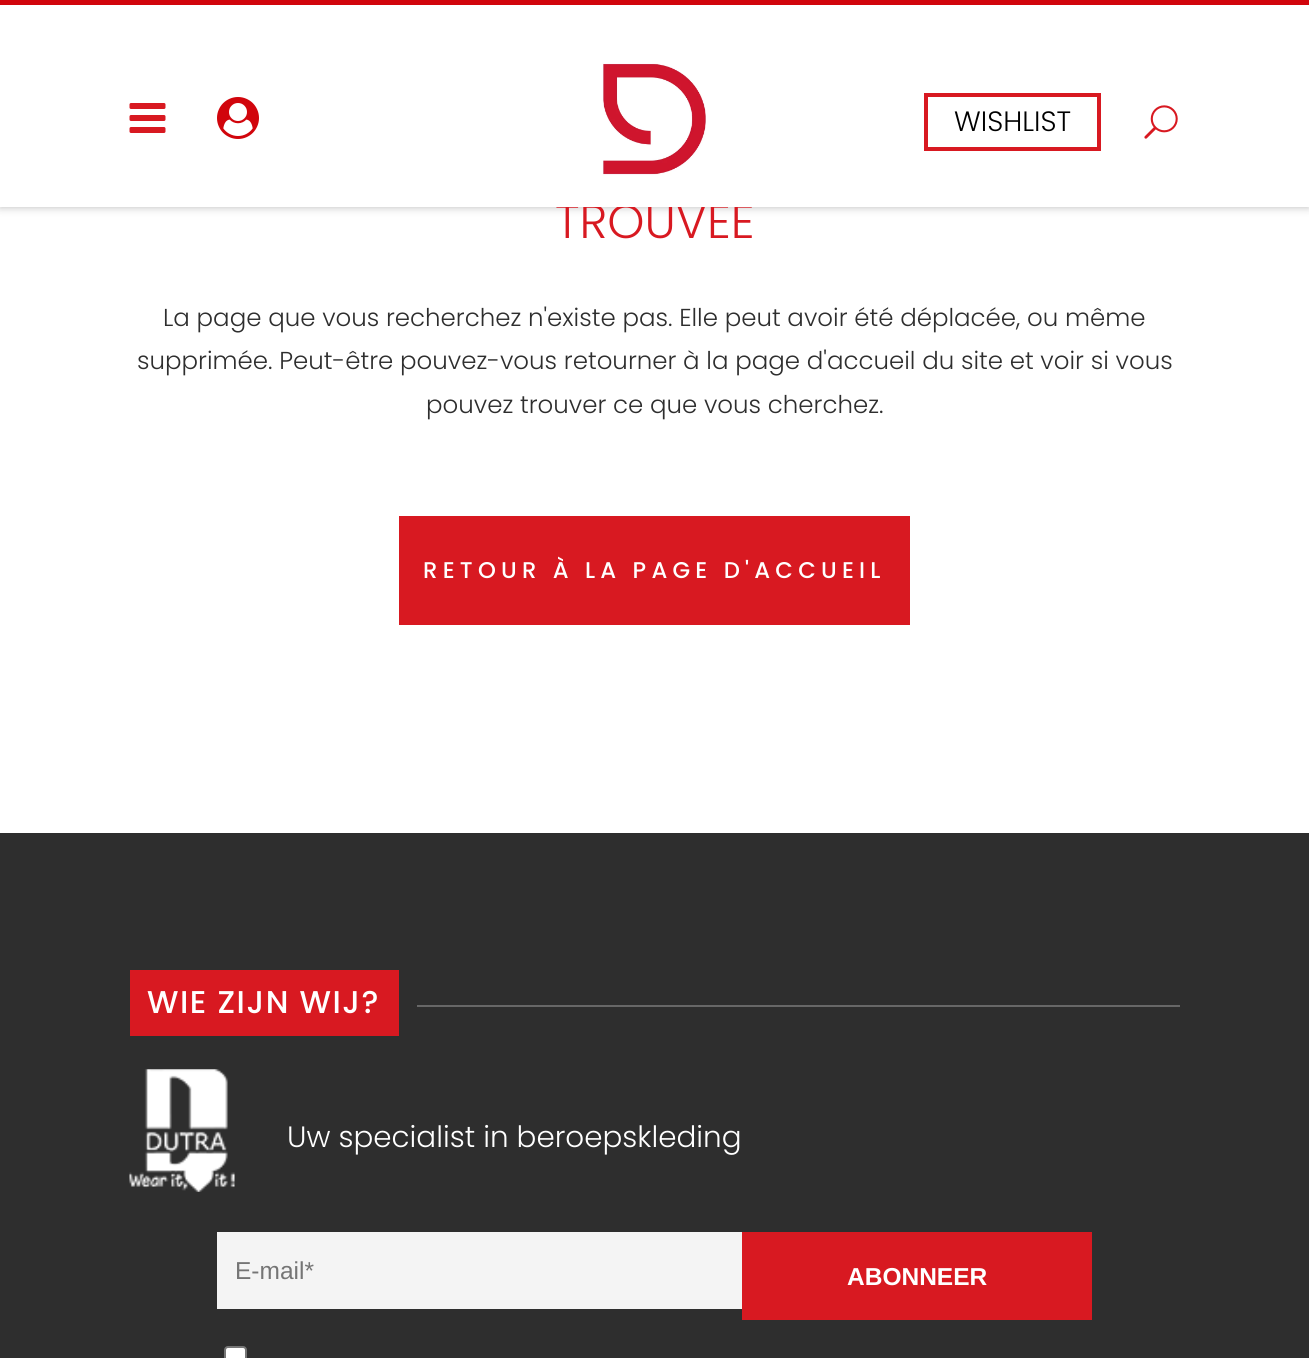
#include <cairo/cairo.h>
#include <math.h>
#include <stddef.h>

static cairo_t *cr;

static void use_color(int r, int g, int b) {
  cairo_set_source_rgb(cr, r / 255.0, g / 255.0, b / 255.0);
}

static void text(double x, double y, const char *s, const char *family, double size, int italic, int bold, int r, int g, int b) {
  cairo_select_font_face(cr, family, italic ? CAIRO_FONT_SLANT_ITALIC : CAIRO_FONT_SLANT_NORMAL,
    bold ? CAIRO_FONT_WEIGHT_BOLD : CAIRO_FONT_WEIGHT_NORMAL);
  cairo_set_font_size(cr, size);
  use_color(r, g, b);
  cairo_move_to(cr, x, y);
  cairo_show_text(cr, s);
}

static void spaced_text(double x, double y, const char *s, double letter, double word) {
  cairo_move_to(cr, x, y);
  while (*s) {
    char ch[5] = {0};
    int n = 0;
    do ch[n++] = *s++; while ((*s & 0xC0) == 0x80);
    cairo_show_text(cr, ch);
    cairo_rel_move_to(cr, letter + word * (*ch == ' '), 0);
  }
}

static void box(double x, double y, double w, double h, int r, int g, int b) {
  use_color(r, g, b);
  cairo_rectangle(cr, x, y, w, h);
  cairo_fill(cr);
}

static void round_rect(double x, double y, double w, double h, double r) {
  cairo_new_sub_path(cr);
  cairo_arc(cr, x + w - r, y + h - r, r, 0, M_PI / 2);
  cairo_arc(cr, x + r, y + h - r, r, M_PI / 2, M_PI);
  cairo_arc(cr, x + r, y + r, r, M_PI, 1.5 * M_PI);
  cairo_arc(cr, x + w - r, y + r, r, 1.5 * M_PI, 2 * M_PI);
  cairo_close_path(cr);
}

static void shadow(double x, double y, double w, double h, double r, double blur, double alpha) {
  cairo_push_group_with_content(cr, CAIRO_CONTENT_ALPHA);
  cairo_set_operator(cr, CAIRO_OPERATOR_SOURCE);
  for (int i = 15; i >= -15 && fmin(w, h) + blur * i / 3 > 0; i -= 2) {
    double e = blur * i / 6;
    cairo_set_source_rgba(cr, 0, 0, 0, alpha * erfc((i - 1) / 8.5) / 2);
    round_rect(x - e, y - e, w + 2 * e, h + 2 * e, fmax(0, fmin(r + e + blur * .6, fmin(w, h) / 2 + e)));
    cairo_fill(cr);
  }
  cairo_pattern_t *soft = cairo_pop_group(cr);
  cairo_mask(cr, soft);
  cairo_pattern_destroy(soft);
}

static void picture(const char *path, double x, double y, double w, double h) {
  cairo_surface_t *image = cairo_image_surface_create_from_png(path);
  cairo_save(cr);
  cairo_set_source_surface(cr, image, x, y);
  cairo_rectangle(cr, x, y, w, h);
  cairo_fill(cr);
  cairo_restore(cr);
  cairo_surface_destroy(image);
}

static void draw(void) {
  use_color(255, 255, 255);
  cairo_paint(cr);
  use_color(0, 0, 0);
  shadow(0, 0, 1309, 207, 0, 4.5, 0.27);
  box(0, 0, 1309, 5, 209, 5, 12);
  box(399, 516, 511, 109, 216, 25, 33);
  box(0, 833, 1309, 525, 46, 46, 46);
  box(130, 970, 269, 66, 216, 25, 33);
  box(417, 1005, 763, 2, 103, 103, 103);
  picture("img_05.png", 129, 1069, 106, 123);
  box(217, 1232, 525, 77, 244, 244, 244);
  box(742, 1232, 350, 88, 216, 25, 33);
  use_color(255, 255, 255);
  round_rect(225, 1347, 21, 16, 3);
  cairo_fill_preserve(cr);
  use_color(118, 118, 118);
  cairo_stroke(cr);
  text(555, 238, "TROUVÉE", "Poppins Light", 47.25, 0, 0, 216, 25, 33);
  box(0, 5, 1309, 202, 255, 255, 255);
  picture("img_03.png", 602, 62, 104, 114);
  picture("img_04.png", 1144, 105, 34, 34);
  cairo_rectangle(cr, 926, 95, 173, 54);
  use_color(216, 25, 33);
  cairo_set_line_width(cr, 4);
  cairo_stroke(cr);
  text(954, 131, "WISHLIST", "Poppins Light", 28, 0, 0, 0, 0, 0);
  picture("img_01.png", 129, 103, 37, 30);
  picture("img_02.png", 217, 97, 42, 42);
  text(163, 326, "La page que vous recherchez n'existe pas. Elle peut avoir été déplacée, ou même", "Poppins Light", 24.5, 0, 0, 46, 46, 46);
  text(137, 369, "supprimée. Peut-être pouvez-vous retourner à la page d'accueil du site et voir si vous", "Poppins Light", 24.5, 0, 0, 46, 46, 46);
  text(426, 413, "pouvez trouver ce que vous cherchez.", "Poppins Light", 24.5, 0, 0, 46, 46, 46);
  cairo_select_font_face(cr, "Poppins Medium", CAIRO_FONT_SLANT_NORMAL, CAIRO_FONT_WEIGHT_NORMAL);
  cairo_set_font_size(cr, 22.75);
  use_color(255, 255, 255);
  spaced_text(423, 578, "RETOUR À LA PAGE D'ACCUEIL", 5.25, 0);
  cairo_set_font_size(cr, 31.5);
  spaced_text(147, 1013, "WIE ZIJN WIJ?", 1.5, 0);
  text(287, 1147, "Uw specialist in beroepskleding", "Poppins Light", 29.4, 0, 0, 255, 255, 255);
  text(235, 1279, "E-mail*", "Liberation Sans", 24.5, 0, 0, 117, 117, 117);
  text(847, 1285, "ABONNEER", "Liberation Sans", 24.5, 0, 1, 255, 255, 255);
}

int main(void) {
  cairo_surface_t *surface = cairo_image_surface_create(CAIRO_FORMAT_RGB24, 1309, 1358);
  cr = cairo_create(surface);
  cairo_font_options_t *options = cairo_font_options_create();
  cairo_font_options_set_hint_metrics(options, CAIRO_HINT_METRICS_OFF);
  cairo_font_options_set_hint_style(options, CAIRO_HINT_STYLE_NONE);
  cairo_set_font_options(cr, options);
  cairo_set_miter_limit(cr, 4);
  draw();
  cairo_surface_write_to_png(surface, "out.png");
  cairo_font_options_destroy(options);
  cairo_destroy(cr);
  cairo_surface_destroy(surface);
  return 0;
}
